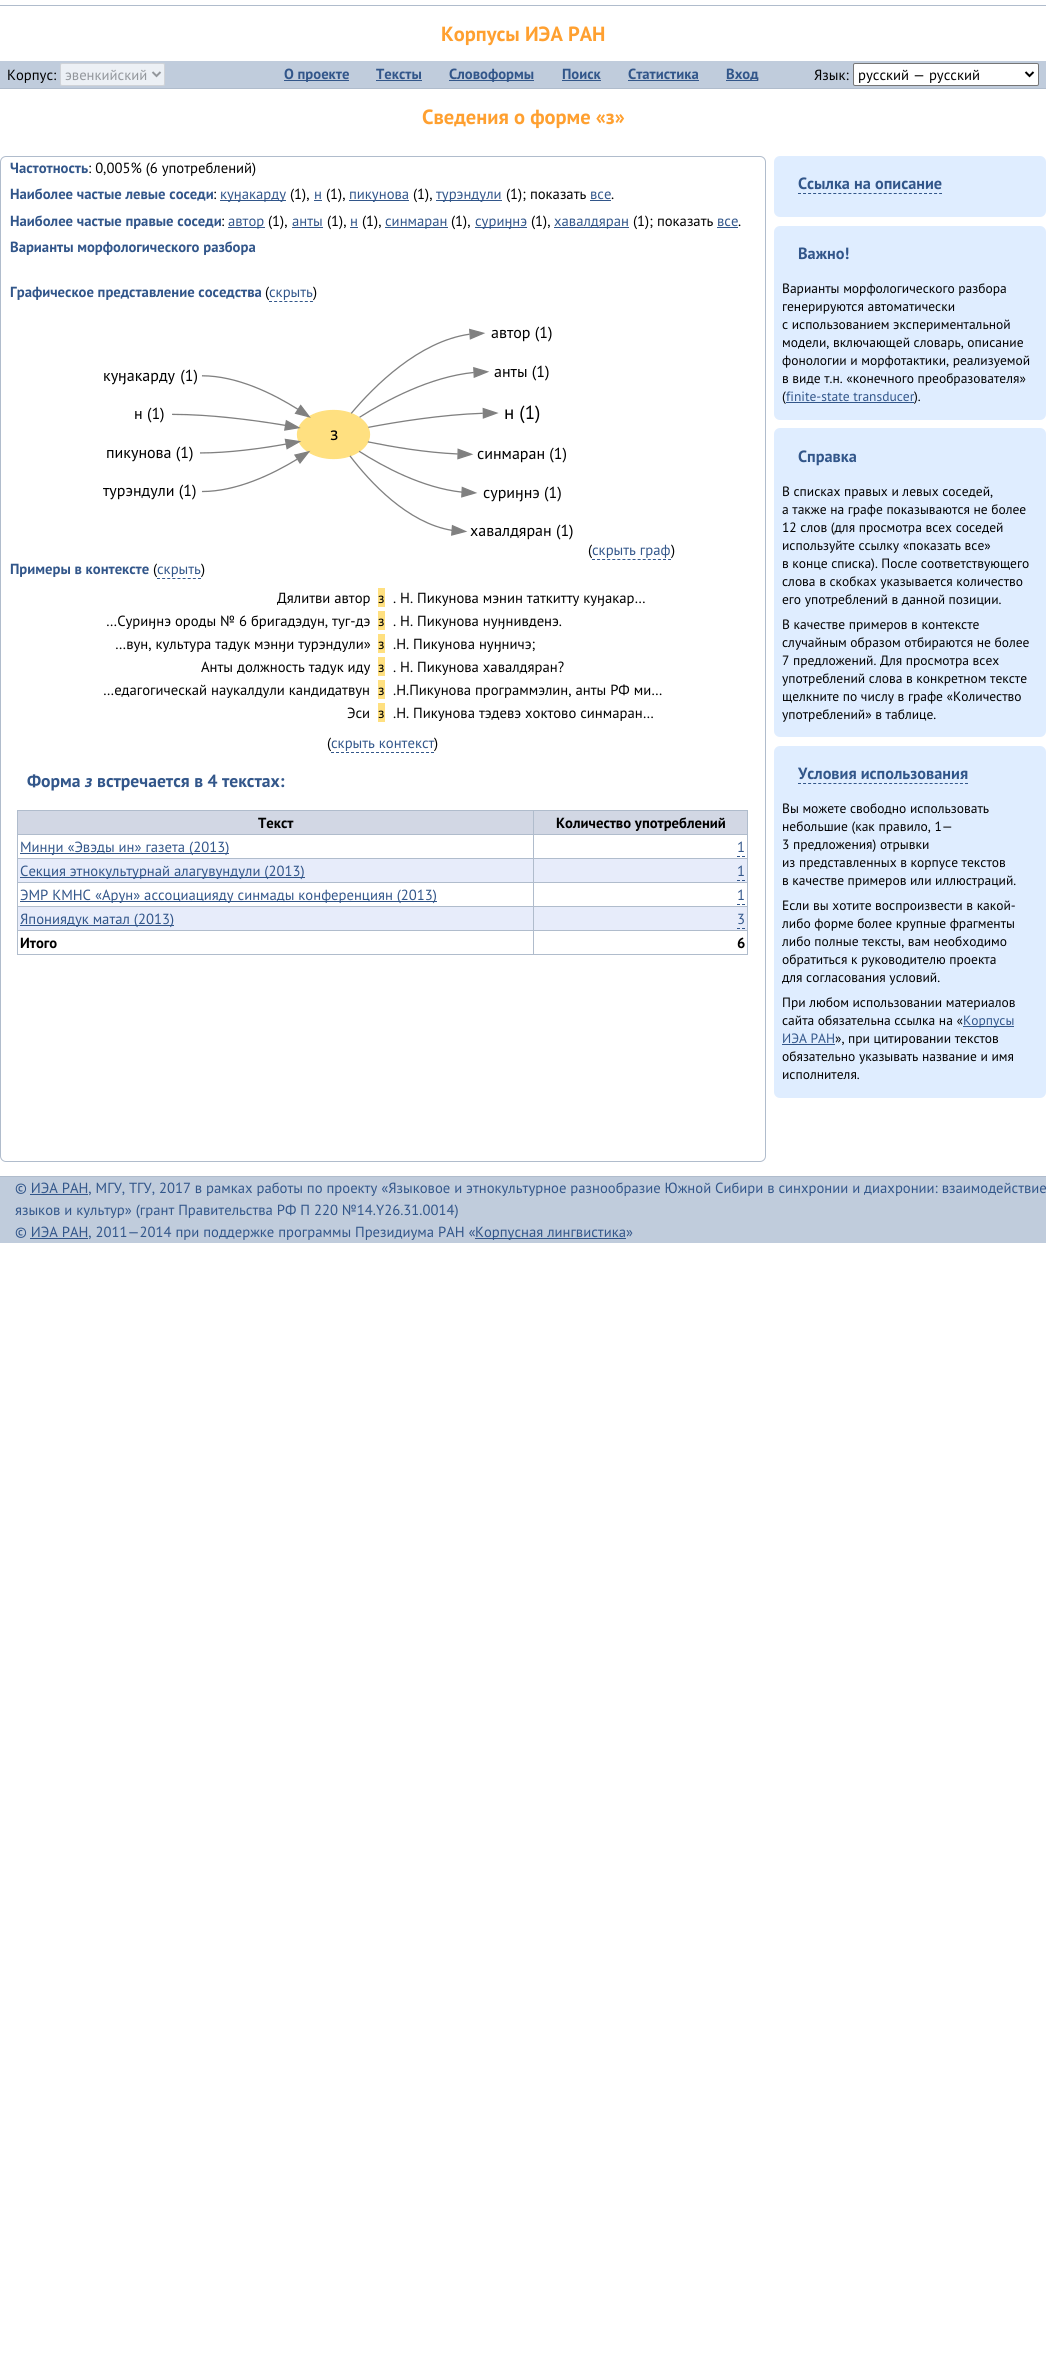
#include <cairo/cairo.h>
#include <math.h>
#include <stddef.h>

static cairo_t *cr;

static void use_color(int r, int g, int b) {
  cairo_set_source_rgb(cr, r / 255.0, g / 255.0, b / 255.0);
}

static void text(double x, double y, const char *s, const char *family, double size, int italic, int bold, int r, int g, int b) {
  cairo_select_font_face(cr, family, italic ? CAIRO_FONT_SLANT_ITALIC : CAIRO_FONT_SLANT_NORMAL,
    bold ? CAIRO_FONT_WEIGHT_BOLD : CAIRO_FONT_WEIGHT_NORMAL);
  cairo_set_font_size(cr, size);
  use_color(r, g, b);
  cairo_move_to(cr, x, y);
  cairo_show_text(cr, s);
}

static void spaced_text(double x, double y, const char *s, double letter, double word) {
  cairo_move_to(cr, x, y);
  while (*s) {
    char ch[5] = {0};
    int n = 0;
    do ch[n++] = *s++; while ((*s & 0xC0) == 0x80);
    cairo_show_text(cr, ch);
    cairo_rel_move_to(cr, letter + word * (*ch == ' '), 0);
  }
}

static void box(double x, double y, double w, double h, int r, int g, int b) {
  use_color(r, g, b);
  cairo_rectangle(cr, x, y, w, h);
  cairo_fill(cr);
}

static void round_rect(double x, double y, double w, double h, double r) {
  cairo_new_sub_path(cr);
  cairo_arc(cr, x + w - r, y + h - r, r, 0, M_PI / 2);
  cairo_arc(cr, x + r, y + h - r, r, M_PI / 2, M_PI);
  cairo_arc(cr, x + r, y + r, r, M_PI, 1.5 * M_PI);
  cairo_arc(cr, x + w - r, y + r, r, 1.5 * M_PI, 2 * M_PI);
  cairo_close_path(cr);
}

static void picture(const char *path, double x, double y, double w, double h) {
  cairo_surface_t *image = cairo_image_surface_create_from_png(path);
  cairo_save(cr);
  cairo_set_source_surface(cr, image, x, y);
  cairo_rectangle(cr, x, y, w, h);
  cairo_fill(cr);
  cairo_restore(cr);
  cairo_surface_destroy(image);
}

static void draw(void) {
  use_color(255, 255, 255);
  cairo_paint(cr);
  box(0, 5, 1046, 1, 176, 188, 204);
  box(0, 61, 1046, 27, 192, 204, 220);
  box(0, 88, 1046, 1, 176, 188, 204);
  use_color(236, 240, 245);
  round_rect(60, 63, 105, 23, 2);
  cairo_fill(cr);
  round_rect(60.5, 63.5, 104, 22, 1.5);
  cairo_set_source_rgba(cr, 0.549, 0.565, 0.584, 0.3);
  cairo_set_line_width(cr, 1);
  cairo_stroke(cr);
  cairo_new_path(cr);
  cairo_move_to(cr, 152.5, 72);
  cairo_line_to(cr, 156.5, 76);
  cairo_line_to(cr, 160.5, 72);
  use_color(147, 151, 156);
  cairo_set_line_width(cr, 2);
  cairo_stroke(cr);
  box(284, 80, 65, 1, 50, 86, 138);
  box(376, 80, 46, 1, 50, 86, 138);
  box(449, 80, 85, 1, 50, 86, 138);
  box(562, 80, 39, 1, 50, 86, 138);
  box(628, 80, 71, 1, 50, 86, 138);
  box(726, 80, 32, 1, 50, 86, 138);
  use_color(255, 255, 255);
  round_rect(853.5, 63.5, 185, 22, 1.5);
  cairo_fill_preserve(cr);
  use_color(118, 118, 118);
  cairo_set_line_width(cr, 1);
  cairo_stroke(cr);
  cairo_new_path(cr);
  cairo_move_to(cr, 1025.5, 72);
  cairo_line_to(cr, 1029.5, 76);
  cairo_line_to(cr, 1033.5, 72);
  use_color(0, 0, 0);
  cairo_set_line_width(cr, 2);
  cairo_stroke(cr);
  round_rect(0.5, 156.5, 765, 1005, 5.5);
  use_color(176, 188, 204);
  cairo_set_line_width(cr, 1);
  cairo_stroke(cr);
  box(220, 200, 66, 1, 50, 86, 138);
  box(314, 200, 8, 1, 50, 86, 138);
  box(349, 200, 60, 1, 50, 86, 138);
  box(436, 200, 66, 1, 50, 86, 138);
  box(590, 200, 21, 1, 50, 86, 138);
  box(228, 227, 37, 1, 50, 86, 138);
  box(292, 227, 31, 1, 50, 86, 138);
  box(350, 227, 8, 1, 50, 86, 138);
  box(385, 227, 63, 1, 50, 86, 138);
  box(475, 227, 52, 1, 50, 86, 138);
  box(554, 227, 75, 1, 50, 86, 138);
  box(717, 227, 21, 1, 50, 86, 138);
  cairo_new_path(cr);
  cairo_move_to(cr, 269, 301.5);
  cairo_line_to(cr, 313, 301.5);
  cairo_set_dash(cr, (double[]){3, 2.12}, 2, 0);
  cairo_stroke(cr);
  picture("img_01.png", 172, 328, 327, 208);
  cairo_new_path(cr);
  cairo_move_to(cr, 592, 559.5);
  cairo_line_to(cr, 671, 559.5);
  cairo_set_dash(cr, (double[]){3, 2.07}, 2, 0);
  cairo_stroke(cr);
  cairo_new_path(cr);
  cairo_move_to(cr, 157, 578.5);
  cairo_line_to(cr, 201, 578.5);
  cairo_set_dash(cr, (double[]){3, 2.12}, 2, 0);
  cairo_stroke(cr);
  box(378, 588, 7, 19, 255, 224, 128);
  box(378, 611, 7, 19, 255, 224, 128);
  box(378, 634, 7, 19, 255, 224, 128);
  box(378, 657, 7, 19, 255, 224, 128);
  box(378, 680, 7, 19, 255, 224, 128);
  box(378, 703, 7, 19, 255, 224, 128);
  cairo_new_path(cr);
  cairo_move_to(cr, 331, 752.5);
  cairo_line_to(cr, 434, 752.5);
  use_color(50, 86, 138);
  cairo_set_dash(cr, (double[]){3, 2}, 2, 0);
  cairo_stroke(cr);
  box(18, 811, 729, 23, 210, 215, 228);
  box(533, 810, 215, 1, 176, 188, 204);
  box(533, 834, 215, 1, 176, 188, 204);
  box(533, 858, 215, 1, 176, 188, 204);
  box(18, 859, 729, 23, 231, 236, 250);
  box(533, 882, 215, 1, 176, 188, 204);
  box(533, 906, 215, 1, 176, 188, 204);
  box(18, 907, 729, 23, 231, 236, 250);
  box(533, 930, 215, 1, 176, 188, 204);
  box(747, 930, 1, 25, 176, 188, 204);
  box(533, 954, 215, 1, 176, 188, 204);
  box(533, 930, 1, 25, 176, 188, 204);
  box(17, 930, 517, 1, 176, 188, 204);
  box(533, 906, 1, 25, 176, 188, 204);
  box(17, 906, 517, 1, 176, 188, 204);
  box(533, 882, 1, 25, 176, 188, 204);
  box(17, 882, 517, 1, 176, 188, 204);
  box(533, 858, 1, 25, 176, 188, 204);
  box(17, 858, 517, 1, 176, 188, 204);
  box(533, 834, 1, 25, 176, 188, 204);
  box(17, 834, 517, 1, 176, 188, 204);
  box(533, 810, 1, 25, 176, 188, 204);
  box(17, 810, 517, 1, 176, 188, 204);
  box(17, 954, 517, 1, 176, 188, 204);
  box(17, 930, 1, 25, 176, 188, 204);
  box(17, 906, 1, 25, 176, 188, 204);
  box(17, 882, 1, 25, 176, 188, 204);
  box(17, 858, 1, 25, 176, 188, 204);
  box(17, 834, 1, 25, 176, 188, 204);
  box(17, 810, 1, 25, 176, 188, 204);
  box(747, 906, 1, 25, 176, 188, 204);
  box(747, 882, 1, 25, 176, 188, 204);
  box(747, 858, 1, 25, 176, 188, 204);
  box(747, 834, 1, 25, 176, 188, 204);
  box(747, 810, 1, 25, 176, 188, 204);
  box(20, 853, 209, 1, 50, 86, 138);
  cairo_new_path(cr);
  cairo_move_to(cr, 737, 856.5);
  cairo_line_to(cr, 740, 856.5);
  cairo_move_to(cr, 742, 856.5);
  cairo_line_to(cr, 745, 856.5);
  cairo_set_dash(cr, NULL, 0, 0);
  cairo_stroke(cr);
  box(20, 877, 285, 1, 50, 86, 138);
  cairo_new_path(cr);
  cairo_move_to(cr, 737, 880.5);
  cairo_line_to(cr, 740, 880.5);
  cairo_move_to(cr, 742, 880.5);
  cairo_line_to(cr, 745, 880.5);
  cairo_stroke(cr);
  box(20, 901, 417, 1, 50, 86, 138);
  cairo_new_path(cr);
  cairo_move_to(cr, 737, 904.5);
  cairo_line_to(cr, 740, 904.5);
  cairo_move_to(cr, 742, 904.5);
  cairo_line_to(cr, 745, 904.5);
  cairo_stroke(cr);
  box(20, 925, 154, 1, 50, 86, 138);
  cairo_new_path(cr);
  cairo_move_to(cr, 737, 928.5);
  cairo_line_to(cr, 740, 928.5);
  cairo_move_to(cr, 742, 928.5);
  cairo_line_to(cr, 745, 928.5);
  cairo_stroke(cr);
  use_color(223, 237, 255);
  round_rect(774, 156, 272, 61, 6);
  cairo_fill(cr);
  cairo_new_path(cr);
  cairo_move_to(cr, 798, 193.5);
  cairo_line_to(cr, 942, 193.5);
  use_color(50, 86, 138);
  cairo_set_dash(cr, (double[]){3, 2.04}, 2, 0);
  cairo_stroke(cr);
  use_color(223, 237, 255);
  round_rect(774, 226, 272, 194, 6);
  cairo_fill(cr);
  box(786, 402, 128, 1, 50, 86, 138);
  use_color(223, 237, 255);
  round_rect(774, 428, 272, 309, 6);
  cairo_fill(cr);
  round_rect(774, 746, 272, 352, 6);
  cairo_fill(cr);
  cairo_new_path(cr);
  cairo_move_to(cr, 798, 783.5);
  cairo_line_to(cr, 968, 783.5);
  use_color(50, 86, 138);
  cairo_set_dash(cr, (double[]){3, 2.06}, 2, 0);
  cairo_stroke(cr);
  box(963, 1026, 51, 1, 50, 86, 138);
  box(782, 1044, 53, 1, 50, 86, 138);
  box(0, 1177, 1046, 66, 192, 204, 220);
  box(0, 1176, 1046, 1, 176, 188, 204);
  box(30, 1194, 58, 1, 50, 86, 138);
  box(475, 1238, 151, 1, 50, 86, 138);
  box(30, 1238, 58, 1, 50, 86, 138);
  text(441, 41, "Корпусы ИЭА РАН", "PT Sans", 20.5, 0, 1, 255, 160, 48);
  text(7, 80, "Корпус:", "PT Sans", 14.67, 0, 0, 0, 0, 0);
  text(65, 80, "эвенкийский", "PT Sans", 14.67, 0, 0, 147, 151, 156);
  text(284, 79, "О проекте", "PT Sans", 14.67, 0, 1, 50, 86, 138);
  text(376, 79, "Тексты", "PT Sans", 14.67, 0, 1, 50, 86, 138);
  text(449, 79, "Словоформы", "PT Sans", 14.67, 0, 1, 50, 86, 138);
  text(562, 79, "Поиск", "PT Sans", 14.67, 0, 1, 50, 86, 138);
  text(628, 79, "Статистика", "PT Sans", 14.67, 0, 1, 50, 86, 138);
  text(726, 79, "Вход", "PT Sans", 14.67, 0, 1, 50, 86, 138);
  text(814, 80, "Язык:", "PT Sans", 14.67, 0, 0, 0, 0, 0);
  text(858, 80, "русский — русский", "PT Sans", 14.67, 0, 0, 0, 0, 0);
  text(422, 124, "Сведения о форме «з»", "PT Sans", 20.5, 0, 1, 255, 160, 48);
  text(10, 173, "Частотность", "PT Sans", 14.67, 0, 1, 50, 86, 138);
  text(88, 173, ": 0,005% (6 употреблений)", "PT Sans", 14.67, 0, 0, 0, 0, 0);
  text(10, 199, "Наиболее частые левые соседи", "PT Sans", 14.67, 0, 1, 50, 86, 138);
  text(213, 199, ":", "PT Sans", 14.67, 0, 0, 0, 0, 0);
  text(220, 199, "куӈакарду", "PT Sans", 14.67, 0, 0, 50, 86, 138);
  text(290, 199, "(1),", "PT Sans", 14.67, 0, 0, 0, 0, 0);
  text(314, 199, "н", "PT Sans", 14.67, 0, 0, 50, 86, 138);
  text(326, 199, "(1),", "PT Sans", 14.67, 0, 0, 0, 0, 0);
  text(349, 199, "пикунова", "PT Sans", 14.67, 0, 0, 50, 86, 138);
  text(413, 199, "(1),", "PT Sans", 14.67, 0, 0, 0, 0, 0);
  text(436, 199, "турэндули", "PT Sans", 14.67, 0, 0, 50, 86, 138);
  text(506, 199, "(1); показать", "PT Sans", 14.67, 0, 0, 0, 0, 0);
  text(590, 199, "все", "PT Sans", 14.67, 0, 0, 50, 86, 138);
  text(611, 199, ".", "PT Sans", 14.67, 0, 0, 0, 0, 0);
  text(10, 226, "Наиболее частые правые соседи", "PT Sans", 14.67, 0, 1, 50, 86, 138);
  text(221, 226, ":", "PT Sans", 14.67, 0, 0, 0, 0, 0);
  text(228, 226, "автор", "PT Sans", 14.67, 0, 0, 50, 86, 138);
  text(268, 226, "(1),", "PT Sans", 14.67, 0, 0, 0, 0, 0);
  text(292, 226, "анты", "PT Sans", 14.67, 0, 0, 50, 86, 138);
  text(327, 226, "(1),", "PT Sans", 14.67, 0, 0, 0, 0, 0);
  text(350, 226, "н", "PT Sans", 14.67, 0, 0, 50, 86, 138);
  text(362, 226, "(1),", "PT Sans", 14.67, 0, 0, 0, 0, 0);
  text(385, 226, "синмаран", "PT Sans", 14.67, 0, 0, 50, 86, 138);
  text(451, 226, "(1),", "PT Sans", 14.67, 0, 0, 0, 0, 0);
  text(475, 226, "суриӈнэ", "PT Sans", 14.67, 0, 0, 50, 86, 138);
  text(531, 226, "(1),", "PT Sans", 14.67, 0, 0, 0, 0, 0);
  text(554, 226, "хавалдяран", "PT Sans", 14.67, 0, 0, 50, 86, 138);
  text(633, 226, "(1); показать", "PT Sans", 14.67, 0, 0, 0, 0, 0);
  text(717, 226, "все", "PT Sans", 14.67, 0, 0, 50, 86, 138);
  text(738, 226, ".", "PT Sans", 14.67, 0, 0, 0, 0, 0);
  text(10, 252, "Варианты морфологического разбора", "PT Sans", 14.67, 0, 1, 50, 86, 138);
  text(10, 297, "Графическое представление соседства", "PT Sans", 14.67, 0, 1, 50, 86, 138);
  text(265, 297, "(", "PT Sans", 14.67, 0, 0, 0, 0, 0);
  text(269, 297, "скрыть", "PT Sans", 14.67, 0, 0, 50, 86, 138);
  text(313, 297, ")", "PT Sans", 14.67, 0, 0, 0, 0, 0);
  text(491, 338, "автор (1)", "PT Sans", 16, 0, 0, 0, 0, 0);
  spaced_text(103, 381, "куӈакарду (1)", 0, 1);
  text(494, 377, "анты (1)", "PT Sans", 16, 0, 0, 0, 0, 0);
  text(134, 419, "н (1)", "PT Sans", 16, 0, 0, 0, 0, 0);
  text(504, 419, "н (1)", "PT Sans", 19, 0, 0, 0, 0, 0);
  text(330, 440, "з", "PT Sans", 19, 0, 0, 0, 0, 0);
  text(106, 458, "пикунова (1)", "PT Sans", 16, 0, 0, 0, 0, 0);
  text(477, 459, "синмаран (1)", "PT Sans", 16, 0, 0, 0, 0, 0);
  text(103, 496, "турэндули (1)", "PT Sans", 16, 0, 0, 0, 0, 0);
  text(483, 498, "суриӈнэ (1)", "PT Sans", 16, 0, 0, 0, 0, 0);
  text(470, 536, "хавалдяран (1)", "PT Sans", 16, 0, 0, 0, 0, 0);
  text(588, 555, "(", "PT Sans", 14.67, 0, 0, 0, 0, 0);
  text(592, 555, "скрыть граф", "PT Sans", 14.67, 0, 0, 50, 86, 138);
  text(671, 555, ")", "PT Sans", 14.67, 0, 0, 0, 0, 0);
  text(10, 574, "Примеры в контексте", "PT Sans", 14.67, 0, 1, 50, 86, 138);
  text(153, 574, "(", "PT Sans", 14.67, 0, 0, 0, 0, 0);
  text(157, 574, "скрыть", "PT Sans", 14.67, 0, 0, 50, 86, 138);
  text(201, 574, ")", "PT Sans", 14.67, 0, 0, 0, 0, 0);
  text(277, 603, "Дялитви автор", "PT Sans", 14.67, 0, 0, 0, 0, 0);
  text(378, 603, "з", "PT Sans", 14.67, 0, 0, 0, 0, 0);
  text(393, 603, ". Н. Пикунова мэнин таткитту куӈакар…", "PT Sans", 14.67, 0, 0, 0, 0, 0);
  text(106, 626, "…Суриӈнэ ороды № 6 бригадэдун, туг-дэ", "PT Sans", 14.67, 0, 0, 0, 0, 0);
  text(378, 626, "з", "PT Sans", 14.67, 0, 0, 0, 0, 0);
  text(393, 626, ". Н. Пикунова нуӈнивденэ.", "PT Sans", 14.67, 0, 0, 0, 0, 0);
  text(115, 649, "…вун, культура тадук мэнӈи турэндули»", "PT Sans", 14.67, 0, 0, 0, 0, 0);
  text(378, 649, "з", "PT Sans", 14.67, 0, 0, 0, 0, 0);
  text(393, 649, ".Н. Пикунова нуӈничэ;", "PT Sans", 14.67, 0, 0, 0, 0, 0);
  text(201, 672, "Анты должность тадук иду", "PT Sans", 14.67, 0, 0, 0, 0, 0);
  text(378, 672, "з", "PT Sans", 14.67, 0, 0, 0, 0, 0);
  text(393, 672, ". Н. Пикунова хавалдяран?", "PT Sans", 14.67, 0, 0, 0, 0, 0);
  text(103, 695, "…едагогическай наукалдули кандидатвун", "PT Sans", 14.67, 0, 0, 0, 0, 0);
  text(378, 695, "з", "PT Sans", 14.67, 0, 0, 0, 0, 0);
  text(393, 695, ".Н.Пикунова программэлин, анты РФ ми…", "PT Sans", 14.67, 0, 0, 0, 0, 0);
  text(347, 718, "Эси", "PT Sans", 14.67, 0, 0, 0, 0, 0);
  text(378, 718, "з", "PT Sans", 14.67, 0, 0, 0, 0, 0);
  text(393, 718, ".Н. Пикунова тэдевэ хоктово синмаран…", "PT Sans", 14.67, 0, 0, 0, 0, 0);
  text(327, 748, "(", "PT Sans", 14.67, 0, 0, 0, 0, 0);
  text(331, 748, "скрыть контекст", "PT Sans", 14.67, 0, 0, 50, 86, 138);
  text(434, 748, ")", "PT Sans", 14.67, 0, 0, 0, 0, 0);
  text(27, 787, "Форма", "PT Sans", 17.6, 0, 1, 50, 86, 138);
  text(85, 787, "з", "PT Sans", 17.6, 1, 1, 50, 86, 138);
  text(97, 787, "встречается в 4 текстах:", "PT Sans", 17.6, 0, 1, 50, 86, 138);
  text(258, 828, "Текст", "PT Sans", 14.67, 0, 1, 0, 0, 0);
  text(556, 828, "Количество употреблений", "PT Sans", 14.67, 0, 1, 0, 0, 0);
  text(20, 852, "Минӈи «Эвэды ин» газета (2013)", "PT Sans", 14.67, 0, 0, 50, 86, 138);
  text(737, 852, "1", "PT Sans", 14.67, 0, 0, 50, 86, 138);
  text(20, 876, "Секция этнокультурнай алагувундули (2013)", "PT Sans", 14.67, 0, 0, 50, 86, 138);
  text(737, 876, "1", "PT Sans", 14.67, 0, 0, 50, 86, 138);
  text(20, 900, "ЭМР КМНС «Арун» ассоциацияду синмады конференциян (2013)", "PT Sans", 14.67, 0, 0, 50, 86, 138);
  text(737, 900, "1", "PT Sans", 14.67, 0, 0, 50, 86, 138);
  text(20, 924, "Япониядук матал (2013)", "PT Sans", 14.67, 0, 0, 50, 86, 138);
  text(737, 924, "3", "PT Sans", 14.67, 0, 0, 50, 86, 138);
  text(20, 948, "Итого", "PT Sans", 14.67, 0, 1, 0, 0, 0);
  text(737, 948, "6", "PT Sans", 14.67, 0, 1, 0, 0, 0);
  text(798, 189, "Ссылка на описание", "PT Sans", 16.25, 0, 1, 50, 86, 138);
  text(798, 259, "Важно!", "PT Sans", 16.25, 0, 1, 50, 86, 138);
  text(782, 293, "Варианты морфологического разбора", "PT Sans", 13.5, 0, 0, 0, 0, 0);
  text(782, 311, "генерируются автоматически", "PT Sans", 13.5, 0, 0, 0, 0, 0);
  text(782, 329, "с использованием экспериментальной", "PT Sans", 13.5, 0, 0, 0, 0, 0);
  text(782, 347, "модели, включающей словарь, описание", "PT Sans", 13.5, 0, 0, 0, 0, 0);
  text(782, 365, "фонологии и морфотактики, реализуемой", "PT Sans", 13.5, 0, 0, 0, 0, 0);
  text(782, 383, "в виде т.н. «конечного преобразователя»", "PT Sans", 13.5, 0, 0, 0, 0, 0);
  text(782, 401, "(", "PT Sans", 13.5, 0, 0, 0, 0, 0);
  text(786, 401, "finite-state transducer", "PT Sans", 13.5, 0, 0, 50, 86, 138);
  text(914, 401, ").", "PT Sans", 13.5, 0, 0, 0, 0, 0);
  text(798, 462, "Справка", "PT Sans", 16.25, 0, 1, 50, 86, 138);
  text(782, 496, "В списках правых и левых соседей,", "PT Sans", 13.5, 0, 0, 0, 0, 0);
  text(782, 514, "а также на графе показываются не более", "PT Sans", 13.5, 0, 0, 0, 0, 0);
  text(782, 532, "12 слов (для просмотра всех соседей", "PT Sans", 13.5, 0, 0, 0, 0, 0);
  text(782, 550, "используйте ссылку «показать все»", "PT Sans", 13.5, 0, 0, 0, 0, 0);
  text(782, 568, "в конце списка). После соответствующего", "PT Sans", 13.5, 0, 0, 0, 0, 0);
  text(782, 586, "слова в скобках указывается количество", "PT Sans", 13.5, 0, 0, 0, 0, 0);
  text(782, 604, "его употреблений в данной позиции.", "PT Sans", 13.5, 0, 0, 0, 0, 0);
  text(782, 629, "В качестве примеров в контексте", "PT Sans", 13.5, 0, 0, 0, 0, 0);
  text(782, 647, "случайным образом отбираются не более", "PT Sans", 13.5, 0, 0, 0, 0, 0);
  text(782, 665, "7 предложений. Для просмотра всех", "PT Sans", 13.5, 0, 0, 0, 0, 0);
  text(782, 683, "употреблений слова в конкретном тексте", "PT Sans", 13.5, 0, 0, 0, 0, 0);
  text(782, 701, "щелкните по числу в графе «Количество", "PT Sans", 13.5, 0, 0, 0, 0, 0);
  text(782, 719, "употреблений» в таблице.", "PT Sans", 13.5, 0, 0, 0, 0, 0);
  text(798, 779, "Условия использования", "PT Sans", 16.25, 0, 1, 50, 86, 138);
  text(782, 813, "Вы можете свободно использовать", "PT Sans", 13.5, 0, 0, 0, 0, 0);
  text(782, 831, "небольшие (как правило, 1—", "PT Sans", 13.5, 0, 0, 0, 0, 0);
  text(782, 849, "3 предложения) отрывки", "PT Sans", 13.5, 0, 0, 0, 0, 0);
  text(782, 867, "из представленных в корпусе текстов", "PT Sans", 13.5, 0, 0, 0, 0, 0);
  text(782, 885, "в качестве примеров или иллюстраций.", "PT Sans", 13.5, 0, 0, 0, 0, 0);
  text(782, 910, "Если вы хотите воспроизвести в какой-", "PT Sans", 13.5, 0, 0, 0, 0, 0);
  text(782, 928, "либо форме более крупные фрагменты", "PT Sans", 13.5, 0, 0, 0, 0, 0);
  text(782, 946, "либо полные тексты, вам необходимо", "PT Sans", 13.5, 0, 0, 0, 0, 0);
  text(782, 964, "обратиться к руководителю проекта", "PT Sans", 13.5, 0, 0, 0, 0, 0);
  text(782, 982, "для согласования условий.", "PT Sans", 13.5, 0, 0, 0, 0, 0);
  text(782, 1007, "При любом использовании материалов", "PT Sans", 13.5, 0, 0, 0, 0, 0);
  text(782, 1025, "сайта обязательна ссылка на «", "PT Sans", 13.5, 0, 0, 0, 0, 0);
  text(963, 1025, "Корпусы", "PT Sans", 13.5, 0, 0, 50, 86, 138);
  text(782, 1043, "ИЭА РАН", "PT Sans", 13.5, 0, 0, 50, 86, 138);
  text(835, 1043, "», при цитировании текстов", "PT Sans", 13.5, 0, 0, 0, 0, 0);
  text(782, 1061, "обязательно указывать название и имя", "PT Sans", 13.5, 0, 0, 0, 0, 0);
  text(782, 1079, "исполнителя.", "PT Sans", 13.5, 0, 0, 0, 0, 0);
  text(15, 1193, "© ИЭА РАН, МГУ, ТГУ, 2017 в рамках работы по проекту «Языковое и этнокультурное разнообразие Южной Сибири в синхронии и диахронии: взаимодействие", "PT Sans", 14.67, 0, 0, 50, 86, 138);
  text(15, 1215, "языков и культур» (грант Правительства РФ П 220 №14.Y26.31.0014)", "PT Sans", 14.67, 0, 0, 50, 86, 138);
  text(15, 1237, "© ИЭА РАН, 2011—2014 при поддержке программы Президиума РАН «", "PT Sans", 14.67, 0, 0, 50, 86, 138);
  text(475, 1237, "Корпусная лингвистика»", "PT Sans", 14.67, 0, 0, 50, 86, 138);
}

int main(void) {
  cairo_surface_t *surface = cairo_image_surface_create(CAIRO_FORMAT_RGB24, 1046, 2374);
  cr = cairo_create(surface);
  cairo_font_options_t *options = cairo_font_options_create();
  cairo_font_options_set_hint_metrics(options, CAIRO_HINT_METRICS_OFF);
  cairo_font_options_set_hint_style(options, CAIRO_HINT_STYLE_NONE);
  cairo_set_font_options(cr, options);
  cairo_set_miter_limit(cr, 4);
  draw();
  cairo_surface_write_to_png(surface, "out.png");
  cairo_font_options_destroy(options);
  cairo_destroy(cr);
  cairo_surface_destroy(surface);
  return 0;
}
